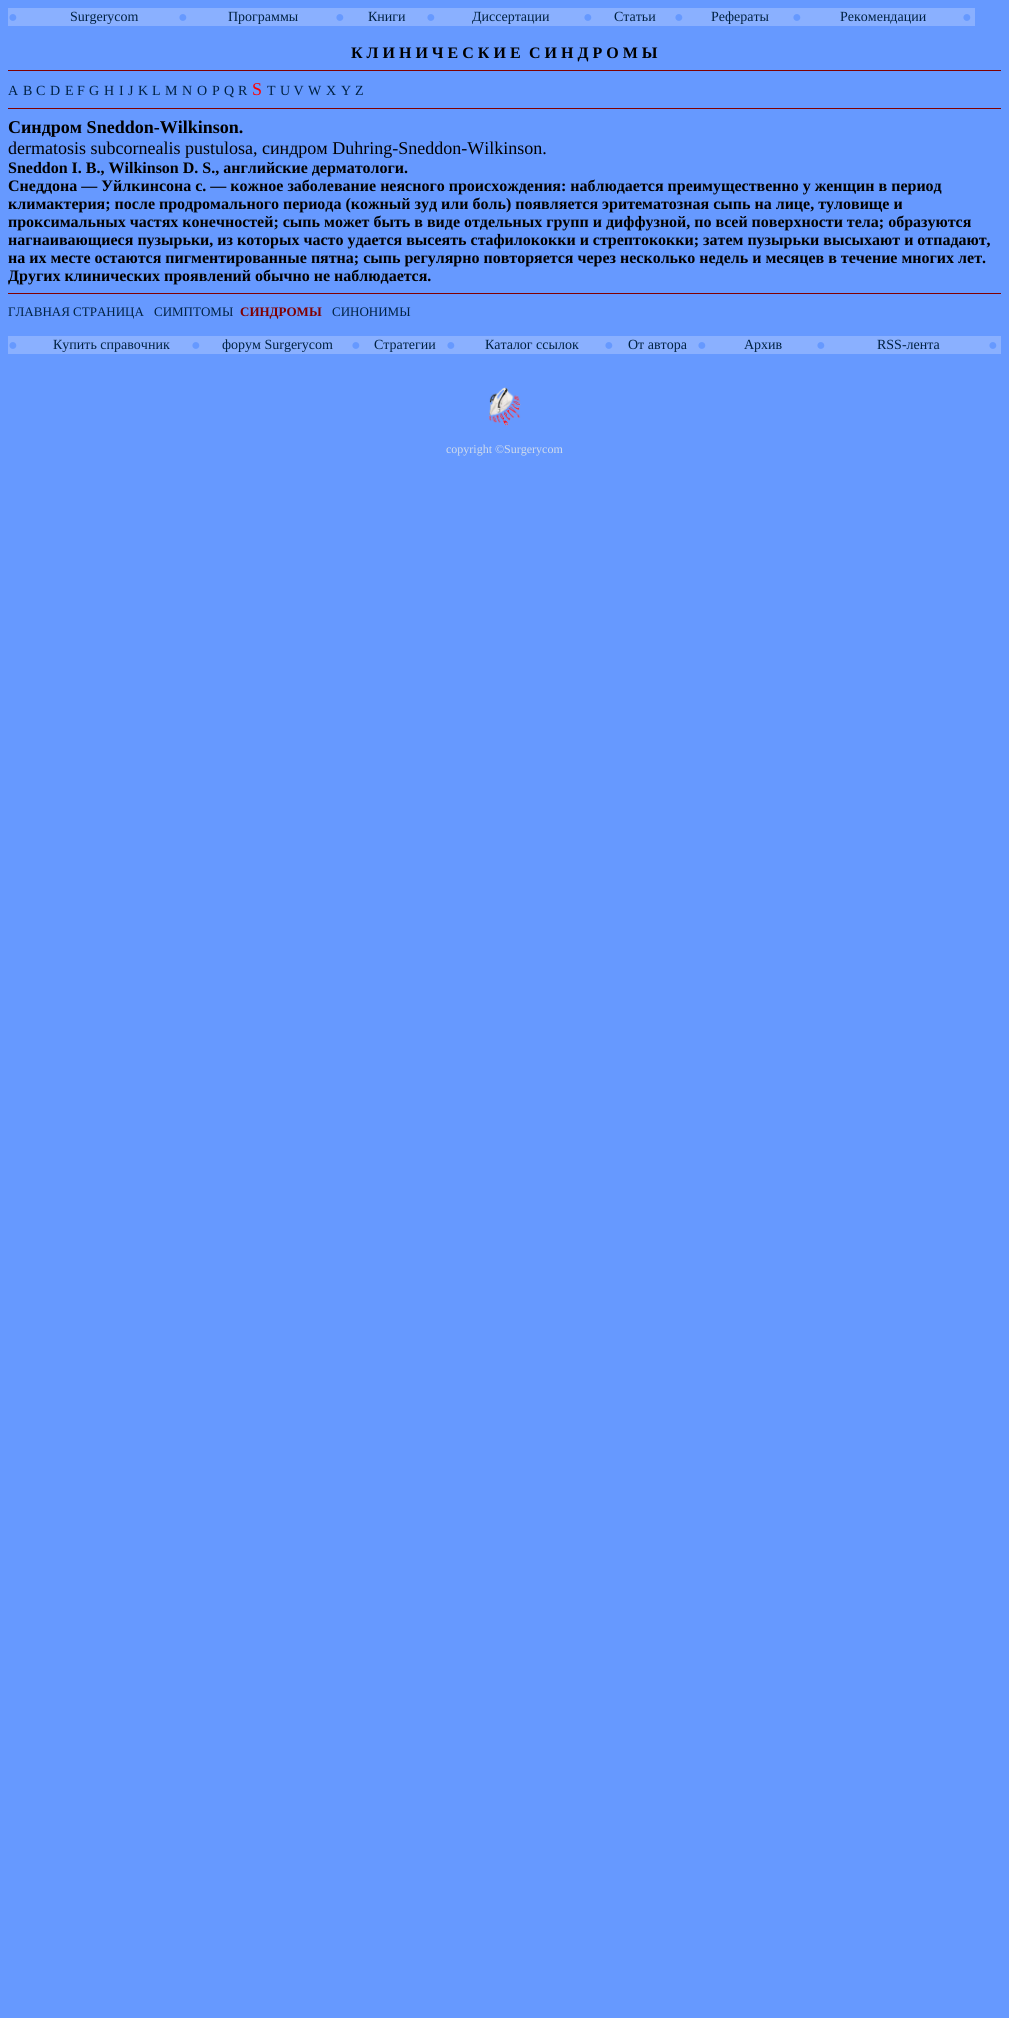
#include <cairo/cairo.h>
#include <math.h>
#include <stddef.h>

static cairo_t *cr;

static void use_color(int r, int g, int b) {
  cairo_set_source_rgb(cr, r / 255.0, g / 255.0, b / 255.0);
}

static void text(double x, double y, const char *s, const char *family, double size, int italic, int bold, int r, int g, int b) {
  cairo_select_font_face(cr, family, italic ? CAIRO_FONT_SLANT_ITALIC : CAIRO_FONT_SLANT_NORMAL,
    bold ? CAIRO_FONT_WEIGHT_BOLD : CAIRO_FONT_WEIGHT_NORMAL);
  cairo_set_font_size(cr, size);
  use_color(r, g, b);
  cairo_move_to(cr, x, y);
  cairo_show_text(cr, s);
}

static void box(double x, double y, double w, double h, int r, int g, int b) {
  use_color(r, g, b);
  cairo_rectangle(cr, x, y, w, h);
  cairo_fill(cr);
}

static void picture(const char *path, double x, double y, double w, double h) {
  cairo_surface_t *image = cairo_image_surface_create_from_png(path);
  cairo_save(cr);
  cairo_set_source_surface(cr, image, x, y);
  cairo_rectangle(cr, x, y, w, h);
  cairo_fill(cr);
  cairo_restore(cr);
  cairo_surface_destroy(image);
}

static void draw(void) {
  use_color(102, 153, 255);
  cairo_paint(cr);
  box(8, 8, 967, 18, 138, 176, 255);
  box(8, 70, 993, 1, 128, 0, 0);
  box(8, 108, 993, 1, 128, 0, 0);
  box(8, 293, 993, 1, 128, 0, 0);
  box(8, 336, 993, 18, 138, 176, 255);
  picture("img_01.png", 489, 387, 32, 39);
  text(8, 22, "●", "Liberation Serif", 16, 0, 0, 102, 153, 255);
  text(70, 21, "Surgerycom", "Liberation Serif", 14, 0, 0, 0, 33, 66);
  text(178, 22, "●", "Liberation Serif", 16, 0, 0, 102, 153, 255);
  text(228, 21, "Программы", "Liberation Serif", 14, 0, 0, 0, 33, 66);
  text(335, 22, "●", "Liberation Serif", 16, 0, 0, 102, 153, 255);
  text(368, 21, "Книги", "Liberation Serif", 14, 0, 0, 0, 33, 66);
  text(426, 22, "●", "Liberation Serif", 16, 0, 0, 102, 153, 255);
  text(472, 21, "Диссертации", "Liberation Serif", 14, 0, 0, 0, 33, 66);
  text(583, 22, "●", "Liberation Serif", 16, 0, 0, 102, 153, 255);
  text(614, 21, "Статьи", "Liberation Serif", 14, 0, 0, 0, 33, 66);
  text(674, 22, "●", "Liberation Serif", 16, 0, 0, 102, 153, 255);
  text(711, 21, "Рефераты", "Liberation Serif", 14, 0, 0, 0, 33, 66);
  text(792, 22, "●", "Liberation Serif", 16, 0, 0, 102, 153, 255);
  text(840, 21, "Рекомендации", "Liberation Serif", 14, 0, 0, 0, 33, 66);
  text(962, 22, "●", "Liberation Serif", 16, 0, 0, 102, 153, 255);
  text(351, 58, "К Л И Н И Ч Е С К И Е", "Liberation Serif", 16, 0, 1, 0, 0, 0);
  text(529, 58, "С И Н Д Р О М Ы", "Liberation Serif", 16, 0, 1, 0, 0, 0);
  text(8, 95, "A", "Liberation Serif", 14, 0, 0, 0, 33, 66);
  text(23, 95, "B", "Liberation Serif", 14, 0, 0, 0, 33, 66);
  text(36, 95, "C", "Liberation Serif", 14, 0, 0, 0, 33, 66);
  text(50, 95, "D", "Liberation Serif", 14, 0, 0, 0, 33, 66);
  text(65, 95, "E F", "Liberation Serif", 14, 0, 0, 0, 33, 66);
  text(89, 95, "G", "Liberation Serif", 14, 0, 0, 0, 33, 66);
  text(104, 95, "H", "Liberation Serif", 14, 0, 0, 0, 33, 66);
  text(119, 95, "I", "Liberation Serif", 14, 0, 0, 0, 33, 66);
  text(128, 95, "J", "Liberation Serif", 14, 0, 0, 0, 33, 66);
  text(138, 95, "K", "Liberation Serif", 14, 0, 0, 0, 33, 66);
  text(152, 95, "L", "Liberation Serif", 14, 0, 0, 0, 33, 66);
  text(165, 95, "M", "Liberation Serif", 14, 0, 0, 0, 33, 66);
  text(182, 95, "N", "Liberation Serif", 14, 0, 0, 0, 33, 66);
  text(197, 95, "O", "Liberation Serif", 14, 0, 0, 0, 33, 66);
  text(212, 95, "P", "Liberation Serif", 14, 0, 0, 0, 33, 66);
  text(224, 95, "Q", "Liberation Serif", 14, 0, 0, 0, 33, 66);
  text(238, 95, "R", "Liberation Serif", 14, 0, 0, 0, 33, 66);
  text(252, 95, "S", "Liberation Serif", 18, 0, 0, 255, 0, 0);
  text(267, 95, "T", "Liberation Serif", 14, 0, 0, 0, 33, 66);
  text(280, 95, "U V", "Liberation Serif", 14, 0, 0, 0, 33, 66);
  text(308, 95, "W", "Liberation Serif", 14, 0, 0, 0, 33, 66);
  text(326, 95, "X", "Liberation Serif", 14, 0, 0, 0, 33, 66);
  text(341, 95, "Y", "Liberation Serif", 14, 0, 0, 0, 33, 66);
  text(355, 95, "Z", "Liberation Serif", 14, 0, 0, 0, 33, 66);
  text(8, 133, "Синдром Sneddon-Wilkinson.", "Liberation Serif", 18, 0, 1, 0, 0, 0);
  text(8, 154, "dermatosis subcornealis pustulosa, синдром Duhring-Sneddon-Wilkinson.", "Liberation Serif", 18, 0, 0, 0, 0, 0);
  text(8, 173, "Sneddon I. B., Wilkinson D. S., английские дерматологи.", "Liberation Serif", 16, 0, 1, 0, 0, 0);
  text(8, 191, "Снеддона — Уйлкинсона с. — кожное заболевание неясного происхождения: наблюдается преимущественно у женщин в период", "Liberation Serif", 16, 0, 1, 0, 0, 0);
  text(8, 209, "климактерия; после продромального периода (кожный зуд или боль) появляется эритематозная сыпь на лице, туловище и", "Liberation Serif", 16, 0, 1, 0, 0, 0);
  text(8, 227, "проксимальных частях конечностей; сыпь может быть в виде отдельных групп и диффузной, по всей поверхности тела; образуются", "Liberation Serif", 16, 0, 1, 0, 0, 0);
  text(8, 245, "нагнаивающиеся пузырьки, из которых часто удается высеять стафилококки и стрептококки; затем пузырьки высыхают и отпадают,", "Liberation Serif", 16, 0, 1, 0, 0, 0);
  text(8, 263, "на их месте остаются пигментированные пятна; сыпь регулярно повторяется через несколько недель и месяцев в течение многих лет.", "Liberation Serif", 16, 0, 1, 0, 0, 0);
  text(8, 281, "Других клинических проявлений обычно не наблюдается.", "Liberation Serif", 16, 0, 1, 0, 0, 0);
  text(8, 316, "ГЛАВНАЯ СТРАНИЦА", "Liberation Serif", 13, 0, 0, 0, 33, 66);
  text(154, 316, "СИМПТОМЫ", "Liberation Serif", 13, 0, 0, 0, 33, 66);
  text(240, 316, "СИНДРОМЫ", "Liberation Serif", 13, 0, 1, 128, 0, 0);
  text(332, 316, "СИНОНИМЫ", "Liberation Serif", 13, 0, 0, 0, 33, 66);
  text(8, 350, "●", "Liberation Serif", 16, 0, 0, 102, 153, 255);
  text(53, 349, "Купить справочник", "Liberation Serif", 14, 0, 0, 0, 33, 66);
  text(191, 350, "●", "Liberation Serif", 16, 0, 0, 102, 153, 255);
  text(222, 349, "форум Surgerycom", "Liberation Serif", 14, 0, 0, 0, 33, 66);
  text(351, 350, "●", "Liberation Serif", 16, 0, 0, 102, 153, 255);
  text(374, 349, "Стратегии", "Liberation Serif", 14, 0, 0, 0, 33, 66);
  text(446, 350, "●", "Liberation Serif", 16, 0, 0, 102, 153, 255);
  text(485, 349, "Каталог ссылок", "Liberation Serif", 14, 0, 0, 0, 33, 66);
  text(604, 350, "●", "Liberation Serif", 16, 0, 0, 102, 153, 255);
  text(628, 349, "От автора", "Liberation Serif", 14, 0, 0, 0, 33, 66);
  text(697, 350, "●", "Liberation Serif", 16, 0, 0, 102, 153, 255);
  text(744, 349, "Архив", "Liberation Serif", 14, 0, 0, 0, 33, 66);
  text(816, 350, "●", "Liberation Serif", 16, 0, 0, 102, 153, 255);
  text(877, 349, "RSS-лента", "Liberation Serif", 14, 0, 0, 0, 33, 66);
  text(988, 350, "●", "Liberation Serif", 16, 0, 0, 102, 153, 255);
  text(446, 453, "copyright ©Surgerycom", "Liberation Serif", 12, 0, 0, 209, 220, 235);
}

int main(void) {
  cairo_surface_t *surface = cairo_image_surface_create(CAIRO_FORMAT_RGB24, 1009, 2018);
  cr = cairo_create(surface);
  cairo_font_options_t *options = cairo_font_options_create();
  cairo_font_options_set_hint_metrics(options, CAIRO_HINT_METRICS_OFF);
  cairo_font_options_set_hint_style(options, CAIRO_HINT_STYLE_NONE);
  cairo_set_font_options(cr, options);
  cairo_set_miter_limit(cr, 4);
  draw();
  cairo_surface_write_to_png(surface, "out.png");
  cairo_font_options_destroy(options);
  cairo_destroy(cr);
  cairo_surface_destroy(surface);
  return 0;
}
